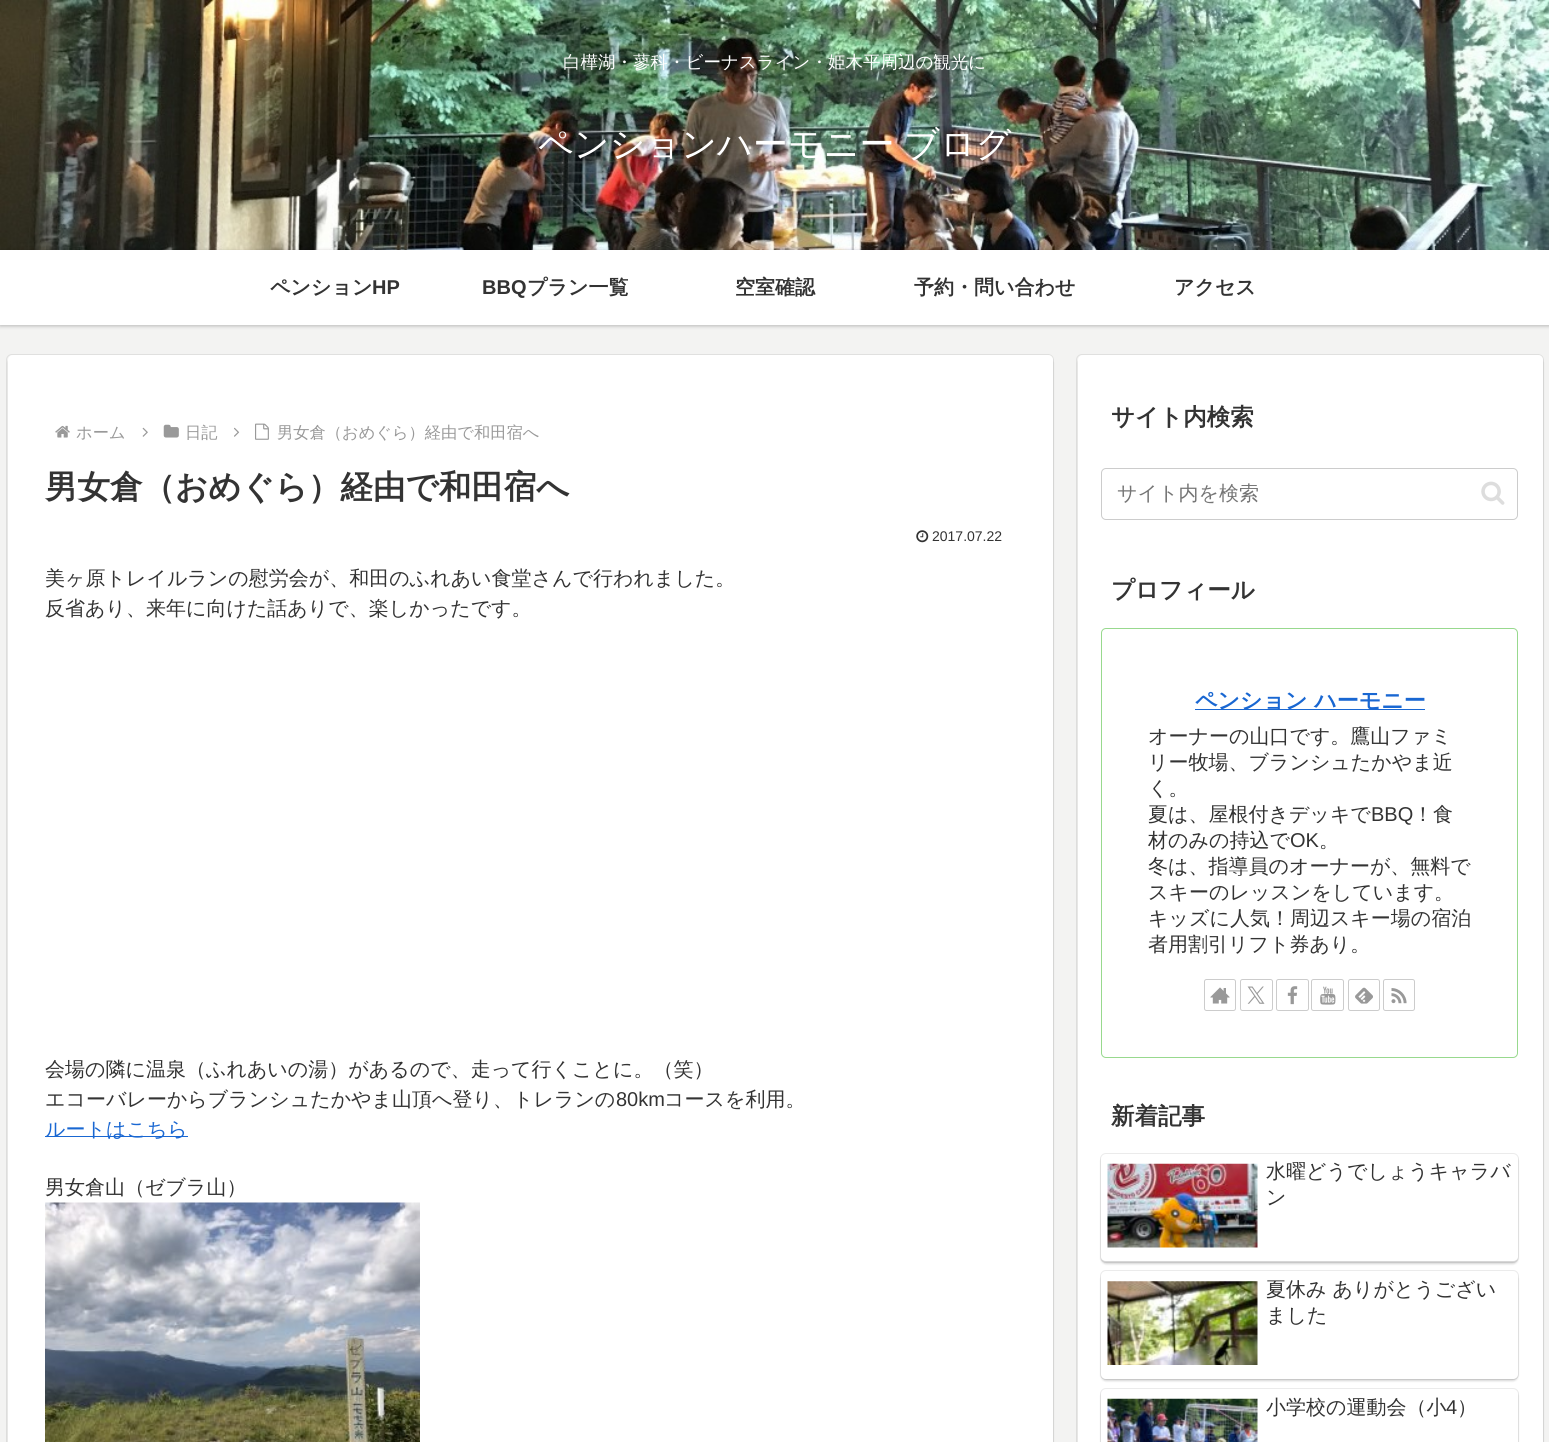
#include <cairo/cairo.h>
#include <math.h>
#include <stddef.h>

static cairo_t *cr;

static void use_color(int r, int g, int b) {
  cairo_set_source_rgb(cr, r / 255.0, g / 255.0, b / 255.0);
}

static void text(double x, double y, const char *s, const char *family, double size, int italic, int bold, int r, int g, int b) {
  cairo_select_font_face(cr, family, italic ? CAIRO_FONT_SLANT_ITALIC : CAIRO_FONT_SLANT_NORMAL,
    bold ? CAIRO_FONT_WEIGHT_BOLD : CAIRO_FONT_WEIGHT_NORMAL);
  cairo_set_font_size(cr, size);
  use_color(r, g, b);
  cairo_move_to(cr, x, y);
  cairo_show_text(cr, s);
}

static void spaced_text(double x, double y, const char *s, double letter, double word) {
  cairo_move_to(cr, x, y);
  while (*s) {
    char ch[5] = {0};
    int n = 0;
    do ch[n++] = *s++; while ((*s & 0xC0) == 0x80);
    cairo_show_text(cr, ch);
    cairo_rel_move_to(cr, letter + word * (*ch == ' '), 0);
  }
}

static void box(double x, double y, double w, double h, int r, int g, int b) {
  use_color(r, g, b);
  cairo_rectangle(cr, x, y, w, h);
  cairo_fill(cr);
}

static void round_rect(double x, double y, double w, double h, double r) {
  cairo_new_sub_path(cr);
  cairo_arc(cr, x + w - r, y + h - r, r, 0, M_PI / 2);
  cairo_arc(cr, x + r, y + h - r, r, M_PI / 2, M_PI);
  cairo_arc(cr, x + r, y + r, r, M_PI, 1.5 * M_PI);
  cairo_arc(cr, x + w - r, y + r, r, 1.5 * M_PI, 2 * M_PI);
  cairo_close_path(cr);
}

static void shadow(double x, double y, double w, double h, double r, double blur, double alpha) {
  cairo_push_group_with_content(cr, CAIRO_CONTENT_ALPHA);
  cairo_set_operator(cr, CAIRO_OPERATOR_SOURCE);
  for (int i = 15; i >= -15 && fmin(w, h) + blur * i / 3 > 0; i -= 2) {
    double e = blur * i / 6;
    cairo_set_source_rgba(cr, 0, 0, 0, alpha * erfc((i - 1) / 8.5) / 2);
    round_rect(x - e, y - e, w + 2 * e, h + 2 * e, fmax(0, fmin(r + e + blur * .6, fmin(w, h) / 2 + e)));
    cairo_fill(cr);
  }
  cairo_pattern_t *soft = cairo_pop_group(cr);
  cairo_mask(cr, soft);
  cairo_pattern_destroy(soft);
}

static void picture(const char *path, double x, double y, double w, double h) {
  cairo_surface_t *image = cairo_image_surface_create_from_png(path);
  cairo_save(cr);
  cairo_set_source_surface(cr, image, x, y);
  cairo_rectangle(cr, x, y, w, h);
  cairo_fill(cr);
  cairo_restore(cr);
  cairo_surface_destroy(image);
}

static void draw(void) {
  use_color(243, 243, 242);
  cairo_paint(cr);
  box(0, 250, 1549, 75, 255, 255, 255);
  picture("img_01.png", 0, 0, 1549, 250);
  cairo_save(cr);
  cairo_set_fill_rule(cr, CAIRO_FILL_RULE_EVEN_ODD);
  cairo_new_path(cr);
  cairo_move_to(cr, 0, 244);
  cairo_line_to(cr, 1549, 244);
  cairo_line_to(cr, 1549, 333);
  cairo_line_to(cr, 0, 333);
  cairo_close_path(cr);
  cairo_move_to(cr, 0, 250);
  cairo_line_to(cr, 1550, 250);
  cairo_line_to(cr, 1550, 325);
  cairo_line_to(cr, 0, 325);
  cairo_close_path(cr);
  cairo_clip(cr);
  use_color(0, 0, 0);
  shadow(0, 251, 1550, 75, 0, 2, 0.25);
  cairo_restore(cr);
  round_rect(6.5, 354.5, 1047, 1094, 5.5);
  use_color(224, 224, 223);
  cairo_set_line_width(cr, 1);
  cairo_stroke(cr);
  use_color(0, 0, 0);
  shadow(8, 358, 1045, 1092, 5, 1, 0.16);
  use_color(255, 255, 255);
  round_rect(8, 355, 1045, 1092, 5);
  cairo_fill(cr);
  picture("img_02.png", 55, 425, 15, 13);
  picture("img_03.png", 142, 427, 6, 10);
  picture("img_04.png", 163, 424, 16, 14);
  picture("img_05.png", 234, 427, 6, 10);
  picture("img_06.png", 255, 423, 14, 17);
  picture("img_07.png", 916, 530, 13, 13);
  box(45, 1136, 143, 1, 25, 103, 210);
  picture("img_08.png", 45, 1202, 375, 240);
  round_rect(1076.5, 354.5, 467, 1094, 5.5);
  use_color(224, 224, 223);
  cairo_stroke(cr);
  use_color(0, 0, 0);
  shadow(1078, 358, 465, 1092, 5, 1, 0.16);
  use_color(255, 255, 255);
  round_rect(1078, 355, 465, 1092, 5);
  cairo_fill(cr);
  round_rect(1101.5, 468.5, 416, 51, 4.5);
  use_color(204, 204, 204);
  cairo_stroke(cr);
  picture("img_09.png", 1481, 481, 24, 24);
  round_rect(1101.5, 628.5, 416, 429, 4.5);
  use_color(152, 217, 142);
  cairo_stroke(cr);
  box(1195, 709, 230, 1, 25, 103, 210);
  round_rect(1204.5, 979.5, 31, 31, 2);
  use_color(204, 204, 204);
  cairo_stroke(cr);
  picture("img_10.png", 1210, 987, 20, 17);
  round_rect(1240.5, 979.5, 32, 31, 2);
  cairo_stroke(cr);
  picture("img_11.png", 1247, 986, 18, 18);
  round_rect(1276.5, 979.5, 32, 31, 2);
  cairo_stroke(cr);
  picture("img_12.png", 1287, 986, 11, 19);
  round_rect(1311.5, 979.5, 32, 31, 2);
  cairo_stroke(cr);
  picture("img_13.png", 1320, 986, 16, 19);
  round_rect(1348.5, 979.5, 31, 31, 2);
  cairo_stroke(cr);
  picture("img_14.png", 1355, 987, 18, 17);
  round_rect(1383.5, 979.5, 31, 31, 2);
  cairo_stroke(cr);
  picture("img_15.png", 1391, 988, 16, 16);
  round_rect(1100.5, 1153.5, 418, 109, 5.5);
  use_color(235, 235, 235);
  cairo_stroke(cr);
  cairo_save(cr);
  cairo_set_fill_rule(cr, CAIRO_FILL_RULE_EVEN_ODD);
  cairo_new_path(cr);
  cairo_move_to(cr, 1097, 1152);
  cairo_line_to(cr, 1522, 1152);
  cairo_line_to(cr, 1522, 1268);
  cairo_line_to(cr, 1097, 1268);
  cairo_close_path(cr);
  cairo_move_to(cr, 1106, 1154);
  cairo_line_to(cr, 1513, 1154);
  cairo_curve_to(cr, 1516, 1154, 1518, 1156, 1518, 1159);
  cairo_line_to(cr, 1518, 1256);
  cairo_curve_to(cr, 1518, 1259, 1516, 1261, 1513, 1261);
  cairo_line_to(cr, 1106, 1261);
  cairo_curve_to(cr, 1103, 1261, 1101, 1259, 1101, 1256);
  cairo_line_to(cr, 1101, 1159);
  cairo_curve_to(cr, 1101, 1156, 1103, 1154, 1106, 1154);
  cairo_close_path(cr);
  cairo_clip(cr);
  use_color(0, 0, 0);
  shadow(1101, 1156, 417, 108, 5, 1, 0.16);
  cairo_restore(cr);
  picture("img_16.png", 1107, 1163, 151, 85);
  round_rect(1100.5, 1270.5, 418, 109, 5.5);
  cairo_stroke(cr);
  cairo_save(cr);
  cairo_set_fill_rule(cr, CAIRO_FILL_RULE_EVEN_ODD);
  cairo_new_path(cr);
  cairo_move_to(cr, 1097, 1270);
  cairo_line_to(cr, 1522, 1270);
  cairo_line_to(cr, 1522, 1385);
  cairo_line_to(cr, 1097, 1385);
  cairo_close_path(cr);
  cairo_move_to(cr, 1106, 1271);
  cairo_line_to(cr, 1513, 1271);
  cairo_curve_to(cr, 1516, 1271, 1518, 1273, 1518, 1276);
  cairo_line_to(cr, 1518, 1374);
  cairo_curve_to(cr, 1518, 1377, 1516, 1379, 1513, 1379);
  cairo_line_to(cr, 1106, 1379);
  cairo_curve_to(cr, 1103, 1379, 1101, 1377, 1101, 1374);
  cairo_line_to(cr, 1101, 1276);
  cairo_curve_to(cr, 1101, 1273, 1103, 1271, 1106, 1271);
  cairo_close_path(cr);
  cairo_clip(cr);
  use_color(0, 0, 0);
  shadow(1101, 1274, 417, 107, 5, 1, 0.16);
  cairo_restore(cr);
  picture("img_17.png", 1107, 1281, 151, 84);
  round_rect(1100.5, 1388.5, 418, 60, 5.5);
  cairo_stroke(cr);
  cairo_save(cr);
  cairo_set_fill_rule(cr, CAIRO_FILL_RULE_EVEN_ODD);
  cairo_new_path(cr);
  cairo_move_to(cr, 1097, 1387);
  cairo_line_to(cr, 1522, 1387);
  cairo_line_to(cr, 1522, 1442);
  cairo_line_to(cr, 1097, 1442);
  cairo_close_path(cr);
  cairo_move_to(cr, 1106, 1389);
  cairo_line_to(cr, 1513, 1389);
  cairo_curve_to(cr, 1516, 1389, 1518, 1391, 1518, 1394);
  cairo_line_to(cr, 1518, 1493);
  cairo_curve_to(cr, 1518, 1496, 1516, 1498, 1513, 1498);
  cairo_line_to(cr, 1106, 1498);
  cairo_curve_to(cr, 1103, 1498, 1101, 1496, 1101, 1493);
  cairo_line_to(cr, 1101, 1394);
  cairo_curve_to(cr, 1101, 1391, 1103, 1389, 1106, 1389);
  cairo_close_path(cr);
  cairo_clip(cr);
  use_color(0, 0, 0);
  shadow(1101, 1391, 417, 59, 5, 1, 0.16);
  cairo_restore(cr);
  picture("img_18.png", 1107, 1398, 151, 44);
  text(563, 68, "白樺湖・蓼科・ビーナスライン・姫木平周辺の観光に", "WenQuanYi Zen Hei Medium", 17.5, 0, 0, 255, 255, 255);
  cairo_set_font_size(cr, 35);
  spaced_text(538, 156, "ペンションハーモニー ブログ", 0, -1);
  text(270, 294, "ペンション", "WenQuanYi Zen Hei", 20, 0, 1, 51, 51, 51);
  text(372, 294, "HP", "Liberation Sans", 20, 0, 1, 51, 51, 51);
  text(482, 294, "BBQ", "Liberation Sans", 20, 0, 1, 51, 51, 51);
  text(527, 294, "プラン一覧", "WenQuanYi Zen Hei", 20, 0, 1, 51, 51, 51);
  text(735, 294, "空室確認", "WenQuanYi Zen Hei", 20, 0, 1, 51, 51, 51);
  text(914, 294, "予約・問い合わせ", "WenQuanYi Zen Hei", 20, 0, 1, 51, 51, 51);
  text(1174, 294, "アクセス", "WenQuanYi Zen Hei", 20, 0, 1, 51, 51, 51);
  text(76, 438, "ホーム", "WenQuanYi Zen Hei Medium", 16.25, 0, 0, 153, 153, 153);
  text(185, 438, "日記", "WenQuanYi Zen Hei Medium", 16.25, 0, 0, 153, 153, 153);
  text(277, 438, "男女倉（おめぐら）経由で和田宿へ", "WenQuanYi Zen Hei Medium", 16.25, 0, 0, 153, 153, 153);
  text(45, 498, "男女倉（おめぐら）経由で和田宿へ", "WenQuanYi Zen Hei", 32.5, 0, 1, 51, 51, 51);
  text(932, 541, "2017.07.22", "Liberation Sans", 14, 0, 0, 51, 51, 51);
  text(45, 585, "美ヶ原トレイルランの慰労会が、和田のふれあい食堂さんで行われました。", "WenQuanYi Zen Hei Medium", 20, 0, 0, 51, 51, 51);
  text(45, 615, "反省あり、来年に向けた話ありで、楽しかったです。", "WenQuanYi Zen Hei Medium", 20, 0, 0, 51, 51, 51);
  text(45, 1076, "会場の隣に温泉（ふれあいの湯）があるので、走って行くことに。（笑）", "WenQuanYi Zen Hei Medium", 20, 0, 0, 51, 51, 51);
  text(45, 1106, "エコーバレーからブランシュたかやま山頂へ登り、トレランの", "WenQuanYi Zen Hei Medium", 20, 0, 0, 51, 51, 51);
  text(616, 1106, "80km", "Liberation Sans", 20, 0, 0, 51, 51, 51);
  text(664, 1106, "コースを利用。", "WenQuanYi Zen Hei Medium", 20, 0, 0, 51, 51, 51);
  text(45, 1136, "ルートはこちら", "WenQuanYi Zen Hei Medium", 20, 0, 0, 25, 103, 210);
  text(45, 1194, "男女倉山（ゼブラ山）", "WenQuanYi Zen Hei Medium", 20, 0, 0, 51, 51, 51);
  text(1111, 425, "サイト内検索", "WenQuanYi Zen Hei", 23.5, 0, 1, 51, 51, 51);
  text(1117, 500, "サイト内を検索", "WenQuanYi Zen Hei Medium", 20, 0, 0, 117, 117, 117);
  text(1111, 598, "プロフィール", "WenQuanYi Zen Hei", 23.5, 0, 1, 51, 51, 51);
  text(1195, 708, "ペンション ハーモニー", "WenQuanYi Zen Hei", 22, 0, 1, 25, 103, 210);
  text(1148, 743, "オーナーの山口です。鷹山ファミ", "WenQuanYi Zen Hei Medium", 20, 0, 0, 51, 51, 51);
  text(1148, 769, "リー牧場、ブランシュたかやま近", "WenQuanYi Zen Hei Medium", 20, 0, 0, 51, 51, 51);
  text(1148, 795, "く。", "WenQuanYi Zen Hei Medium", 20, 0, 0, 51, 51, 51);
  text(1148, 821, "夏は、屋根付きデッキで", "WenQuanYi Zen Hei Medium", 20, 0, 0, 51, 51, 51);
  text(1371, 821, "BBQ", "Liberation Sans", 20, 0, 0, 51, 51, 51);
  text(1413, 821, "！食", "WenQuanYi Zen Hei Medium", 20, 0, 0, 51, 51, 51);
  text(1148, 847, "材のみの持込で", "WenQuanYi Zen Hei Medium", 20, 0, 0, 51, 51, 51);
  text(1290, 847, "OK", "Liberation Sans", 20, 0, 0, 51, 51, 51);
  text(1319, 847, "。", "WenQuanYi Zen Hei Medium", 20, 0, 0, 51, 51, 51);
  text(1148, 873, "冬は、指導員のオーナーが、無料で", "WenQuanYi Zen Hei Medium", 20, 0, 0, 51, 51, 51);
  text(1148, 899, "スキーのレッスンをしています。", "WenQuanYi Zen Hei Medium", 20, 0, 0, 51, 51, 51);
  text(1148, 925, "キッズに人気！周辺スキー場の宿泊", "WenQuanYi Zen Hei Medium", 20, 0, 0, 51, 51, 51);
  text(1148, 951, "者用割引リフト券あり。", "WenQuanYi Zen Hei Medium", 20, 0, 0, 51, 51, 51);
  text(1111, 1124, "新着記事", "WenQuanYi Zen Hei", 23.5, 0, 1, 51, 51, 51);
  text(1266, 1178, "水曜どうでしょうキャラバ", "WenQuanYi Zen Hei Medium", 20, 0, 0, 51, 51, 51);
  text(1266, 1204, "ン", "WenQuanYi Zen Hei Medium", 20, 0, 0, 51, 51, 51);
  text(1266, 1296, "夏休み ありがとうござい", "WenQuanYi Zen Hei Medium", 20, 0, 0, 51, 51, 51);
  text(1266, 1322, "ました", "WenQuanYi Zen Hei Medium", 20, 0, 0, 51, 51, 51);
  text(1266, 1414, "小学校の運動会（小", "WenQuanYi Zen Hei Medium", 20, 0, 0, 51, 51, 51);
  text(1446, 1414, "4", "Liberation Sans", 20, 0, 0, 51, 51, 51);
  text(1457, 1414, "）", "WenQuanYi Zen Hei Medium", 20, 0, 0, 51, 51, 51);
}

int main(void) {
  cairo_surface_t *surface = cairo_image_surface_create(CAIRO_FORMAT_RGB24, 1549, 1442);
  cr = cairo_create(surface);
  cairo_font_options_t *options = cairo_font_options_create();
  cairo_font_options_set_hint_metrics(options, CAIRO_HINT_METRICS_OFF);
  cairo_font_options_set_hint_style(options, CAIRO_HINT_STYLE_NONE);
  cairo_set_font_options(cr, options);
  cairo_set_miter_limit(cr, 4);
  draw();
  cairo_surface_write_to_png(surface, "out.png");
  cairo_font_options_destroy(options);
  cairo_destroy(cr);
  cairo_surface_destroy(surface);
  return 0;
}
